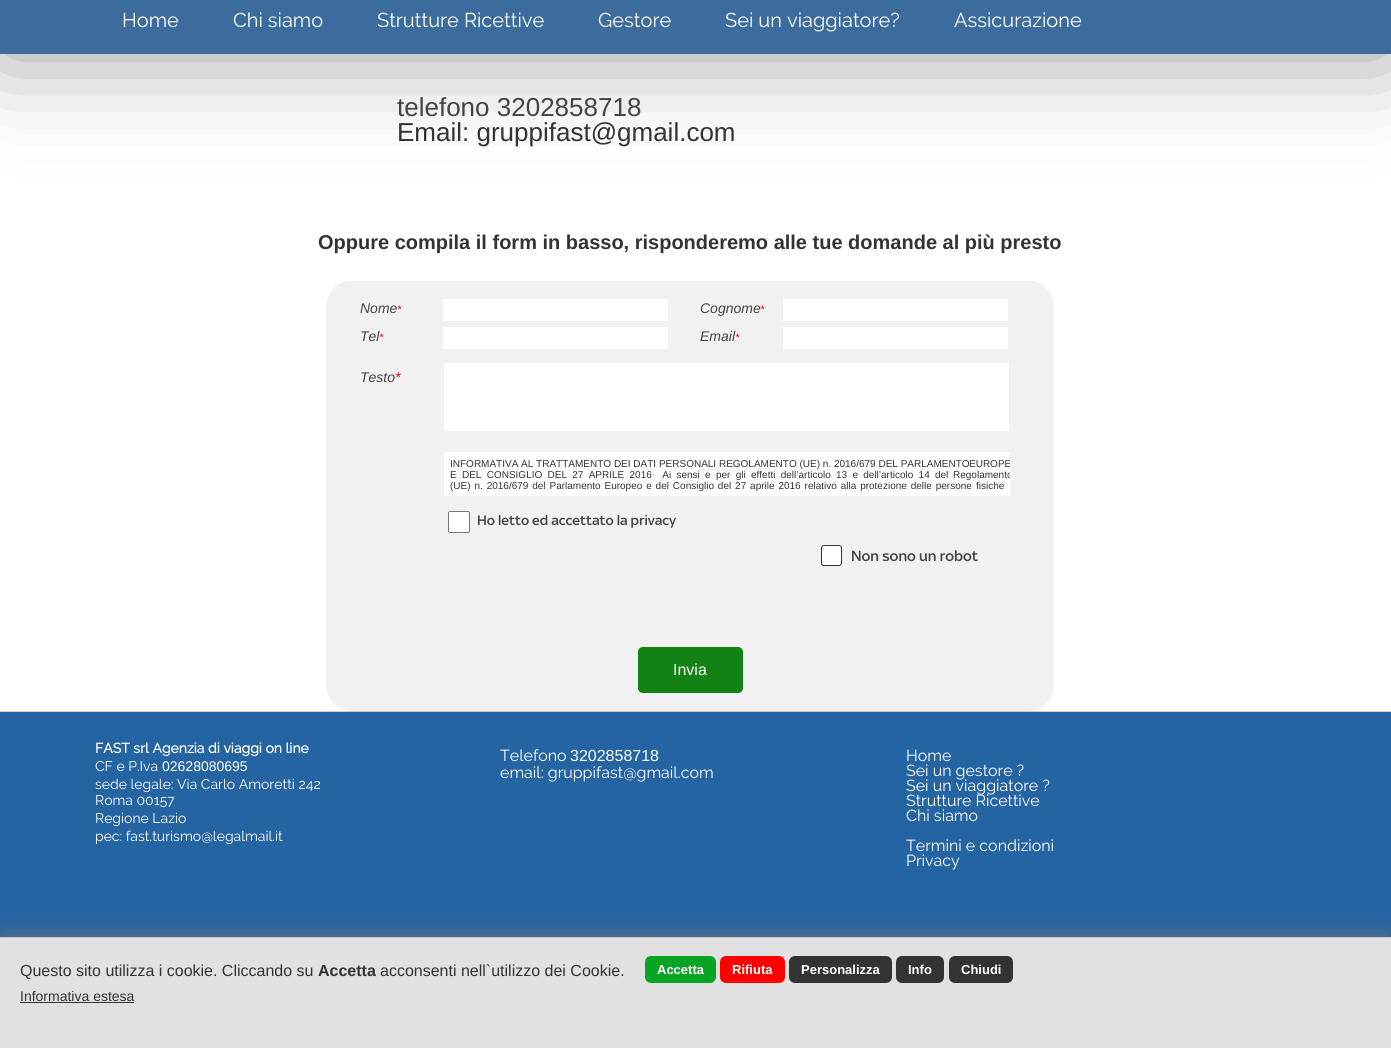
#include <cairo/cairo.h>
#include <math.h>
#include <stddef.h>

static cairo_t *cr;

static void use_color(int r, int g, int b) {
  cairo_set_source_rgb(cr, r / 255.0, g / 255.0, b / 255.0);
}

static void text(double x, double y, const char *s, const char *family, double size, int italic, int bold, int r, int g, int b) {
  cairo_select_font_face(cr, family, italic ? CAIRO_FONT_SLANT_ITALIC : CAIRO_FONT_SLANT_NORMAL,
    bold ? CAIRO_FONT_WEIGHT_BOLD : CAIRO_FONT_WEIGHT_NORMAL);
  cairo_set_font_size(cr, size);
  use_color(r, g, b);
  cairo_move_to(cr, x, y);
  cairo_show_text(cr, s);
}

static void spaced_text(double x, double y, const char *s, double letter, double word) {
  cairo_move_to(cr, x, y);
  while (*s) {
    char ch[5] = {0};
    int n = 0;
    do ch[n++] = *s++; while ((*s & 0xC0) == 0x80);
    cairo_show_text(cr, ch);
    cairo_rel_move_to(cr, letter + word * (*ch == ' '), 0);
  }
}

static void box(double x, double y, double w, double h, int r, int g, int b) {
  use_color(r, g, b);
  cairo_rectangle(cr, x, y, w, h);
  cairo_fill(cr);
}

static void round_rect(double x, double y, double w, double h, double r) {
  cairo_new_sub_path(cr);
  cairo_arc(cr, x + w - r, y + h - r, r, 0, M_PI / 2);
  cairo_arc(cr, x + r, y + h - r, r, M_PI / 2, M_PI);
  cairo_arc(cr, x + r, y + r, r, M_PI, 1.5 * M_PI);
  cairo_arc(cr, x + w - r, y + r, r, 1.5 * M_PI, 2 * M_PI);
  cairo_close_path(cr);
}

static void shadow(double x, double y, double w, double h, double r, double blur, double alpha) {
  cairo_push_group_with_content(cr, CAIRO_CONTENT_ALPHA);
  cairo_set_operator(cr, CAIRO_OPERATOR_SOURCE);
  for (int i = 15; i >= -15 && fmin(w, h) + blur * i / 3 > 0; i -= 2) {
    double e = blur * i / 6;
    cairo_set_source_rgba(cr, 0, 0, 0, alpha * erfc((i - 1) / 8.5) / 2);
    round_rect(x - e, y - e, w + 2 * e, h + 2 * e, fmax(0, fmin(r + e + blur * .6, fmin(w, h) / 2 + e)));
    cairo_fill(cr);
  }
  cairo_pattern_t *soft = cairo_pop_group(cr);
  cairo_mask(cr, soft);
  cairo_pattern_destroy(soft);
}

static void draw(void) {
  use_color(255, 255, 255);
  cairo_paint(cr);
  use_color(51, 51, 51);
  shadow(0, 0, 1391, 54, 0, 50, 0.5);
  box(0, 0, 1391, 54, 59, 108, 157);
  use_color(241, 241, 241);
  round_rect(326, 281, 728, 430, 25);
  cairo_fill(cr);
  box(443, 299, 225, 22, 255, 255, 255);
  box(783, 299, 225, 22, 255, 255, 255);
  box(443, 327, 225, 22, 255, 255, 255);
  box(783, 327, 225, 22, 255, 255, 255);
  box(444, 363, 565, 68, 255, 255, 255);
  box(444, 452, 566, 44, 255, 255, 255);
  round_rect(448.5, 511.5, 21, 21, 1.5);
  cairo_fill_preserve(cr);
  use_color(118, 118, 118);
  cairo_set_line_width(cr, 1);
  cairo_stroke(cr);
  use_color(255, 255, 255);
  round_rect(821.5, 545.5, 20, 20, 2.5);
  cairo_fill_preserve(cr);
  use_color(51, 51, 51);
  cairo_stroke(cr);
  use_color(18, 130, 20);
  round_rect(638, 647, 105, 46, 5);
  cairo_fill(cr);
  box(0, 712, 1391, 225, 37, 100, 162);
  box(0, 711, 1391, 1, 204, 204, 204);
  use_color(115, 115, 115);
  shadow(2, 931, 1387, 107, 0, 7.5, 0.55);
  box(0, 938, 1391, 110, 225, 225, 225);
  box(0, 937, 1391, 1, 204, 204, 204);
  box(20, 1002, 114, 1, 51, 51, 51);
  use_color(7, 164, 37);
  round_rect(645, 956, 71, 27, 6);
  cairo_fill(cr);
  use_color(255, 0, 0);
  round_rect(720, 956, 65, 27, 6);
  cairo_fill(cr);
  use_color(51, 51, 51);
  round_rect(789, 956, 103, 27, 6);
  cairo_fill(cr);
  round_rect(896, 956, 48, 27, 6);
  cairo_fill(cr);
  round_rect(949, 956, 64, 27, 6);
  cairo_fill(cr);
  text(122, 27, "Home", "Raleway", 20, 0, 0, 255, 255, 255);
  text(233, 27, "Chi siamo", "Raleway", 20, 0, 0, 255, 255, 255);
  text(377, 27, "Strutture Ricettive", "Raleway", 20, 0, 0, 255, 255, 255);
  text(598, 27, "Gestore", "Raleway", 20, 0, 0, 255, 255, 255);
  text(725, 27, "Sei un viaggiatore?", "Raleway", 20, 0, 0, 255, 255, 255);
  text(954, 27, "Assicurazione", "Raleway", 20, 0, 0, 255, 255, 255);
  text(397, 116, "telefono 3202858718", "Liberation Sans", 26, 0, 0, 72, 66, 66);
  text(397, 141, "Email: gruppifast@gmail.com", "Liberation Sans", 26, 0, 0, 51, 51, 51);
  text(318, 249, "Oppure compila il form in basso, risponderemo alle tue domande al più presto", "Liberation Sans", 20, 0, 1, 51, 51, 51);
  text(360, 313, "Nome", "Liberation Sans", 14, 1, 0, 72, 66, 66);
  text(397, 313, "*", "Liberation Sans", 11, 1, 0, 255, 0, 0);
  text(700, 313, "Cognome", "Liberation Sans", 14, 1, 0, 72, 66, 66);
  text(760, 313, "*", "Liberation Sans", 11, 1, 0, 255, 0, 0);
  text(360, 341, "Tel", "Liberation Sans", 14, 1, 0, 72, 66, 66);
  text(379, 341, "*", "Liberation Sans", 11, 1, 0, 255, 0, 0);
  text(700, 341, "Email", "Liberation Sans", 14, 1, 0, 72, 66, 66);
  text(735, 341, "*", "Liberation Sans", 11, 1, 0, 255, 0, 0);
  text(360, 382, "Testo", "Liberation Sans", 14, 1, 0, 72, 66, 66);
  text(395, 382, "*", "Liberation Sans", 14, 1, 0, 255, 0, 0);
  text(450, 467, "INFORMATIVA AL TRATTAMENTO DEI DATI PERSONALI REGOLAMENTO (UE) n. 2016/679 DEL PARLAMENTO", "Liberation Sans", 10, 0, 0, 51, 51, 51);
  cairo_save(cr);
  cairo_rectangle(cr, 444, 452, 566, 44);
  cairo_clip(cr);
  text(969, 467, "EUROPE", "Liberation Sans", 10, 0, 0, 51, 51, 51);
  cairo_restore(cr);
  spaced_text(450, 478, "E DEL CONSIGLIO DEL 27 APRILE 2016  Ai sensi e per gli effetti dell’articolo 13 e dell’articolo 14 del", 0, 2.5);
  cairo_save(cr);
  cairo_rectangle(cr, 444, 452, 566, 44);
  cairo_clip(cr);
  text(953, 478, "Regolamento", "Liberation Sans", 10, 0, 0, 51, 51, 51);
  cairo_restore(cr);
  spaced_text(450, 489, "(UE) n. 2016/679 del Parlamento Europeo e del Consiglio del 27 aprile 2016 relativo alla protezione delle persone", 0, 1.1);
  text(976, 489, "fisiche", "Liberation Sans", 10, 0, 0, 51, 51, 51);
  text(477, 525, "Ho letto ed accettato la privacy", "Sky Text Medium", 14, 0, 0, 72, 66, 66);
  text(851, 561, "Non sono un robot", "Sky Text Medium", 15, 0, 0, 72, 66, 66);
  text(673, 675, "Invia", "Liberation Sans", 16, 0, 0, 255, 255, 255);
  text(95, 753, "FAST srl Agenzia di viaggi on line", "Raleway", 14, 0, 1, 255, 255, 255);
  text(95, 771, "CF e P.Iva", "Raleway", 14, 0, 0, 255, 255, 255);
  text(162, 771, "02628080695", "Liberation Sans", 14, 0, 0, 255, 255, 255);
  text(95, 789, "sede legale: Via Carlo Amoretti 242", "Raleway", 14, 0, 0, 255, 255, 255);
  text(95, 805, "Roma 00157", "Raleway", 14, 0, 0, 255, 255, 255);
  text(95, 823, "Regione Lazio", "Raleway", 14, 0, 0, 255, 255, 255);
  text(95, 841, "pec: fast.turismo@legalmail.it", "Raleway", 14, 0, 0, 255, 255, 255);
  text(500, 761, "Telefono", "Raleway", 16, 0, 0, 255, 255, 255);
  text(570, 761, "3202858718", "Liberation Sans", 16, 0, 0, 255, 255, 255);
  text(500, 778, "email: gruppifast@gmail.com", "Raleway", 16, 0, 0, 255, 255, 255);
  text(906, 761, "Home", "Raleway", 16, 0, 0, 255, 255, 255);
  text(906, 776, "Sei un gestore ?", "Raleway", 16, 0, 0, 255, 255, 255);
  text(906, 791, "Sei un viaggiatore ?", "Raleway", 16, 0, 0, 255, 255, 255);
  text(906, 806, "Strutture Ricettive", "Raleway", 16, 0, 0, 255, 255, 255);
  text(906, 821, "Chi siamo", "Raleway", 16, 0, 0, 255, 255, 255);
  text(906, 851, "Termini e condizioni", "Raleway", 16, 0, 0, 255, 255, 255);
  text(906, 866, "Privacy", "Raleway", 16, 0, 0, 255, 255, 255);
  text(20, 976, "Questo sito utilizza i cookie. Cliccando su", "Liberation Sans", 16, 0, 0, 51, 51, 51);
  text(318, 976, "Accetta", "Liberation Sans", 16, 0, 1, 51, 51, 51);
  text(380, 976, "acconsenti nell`utilizzo dei Cookie.", "Liberation Sans", 16, 0, 0, 51, 51, 51);
  text(20, 1001, "Informativa estesa", "Liberation Sans", 14, 0, 0, 51, 51, 51);
  text(657, 974, "Accetta", "Liberation Sans", 13, 0, 1, 255, 255, 255);
  text(732, 974, "Rifiuta", "Liberation Sans", 13, 0, 1, 255, 255, 255);
  text(801, 974, "Personalizza", "Liberation Sans", 13, 0, 1, 255, 255, 255);
  text(908, 974, "Info", "Liberation Sans", 13, 0, 1, 255, 255, 255);
  text(961, 974, "Chiudi", "Liberation Sans", 13, 0, 1, 255, 255, 255);
}

int main(void) {
  cairo_surface_t *surface = cairo_image_surface_create(CAIRO_FORMAT_RGB24, 1391, 1048);
  cr = cairo_create(surface);
  cairo_font_options_t *options = cairo_font_options_create();
  cairo_font_options_set_hint_metrics(options, CAIRO_HINT_METRICS_OFF);
  cairo_font_options_set_hint_style(options, CAIRO_HINT_STYLE_NONE);
  cairo_set_font_options(cr, options);
  cairo_set_miter_limit(cr, 4);
  draw();
  cairo_surface_write_to_png(surface, "out.png");
  cairo_font_options_destroy(options);
  cairo_destroy(cr);
  cairo_surface_destroy(surface);
  return 0;
}
